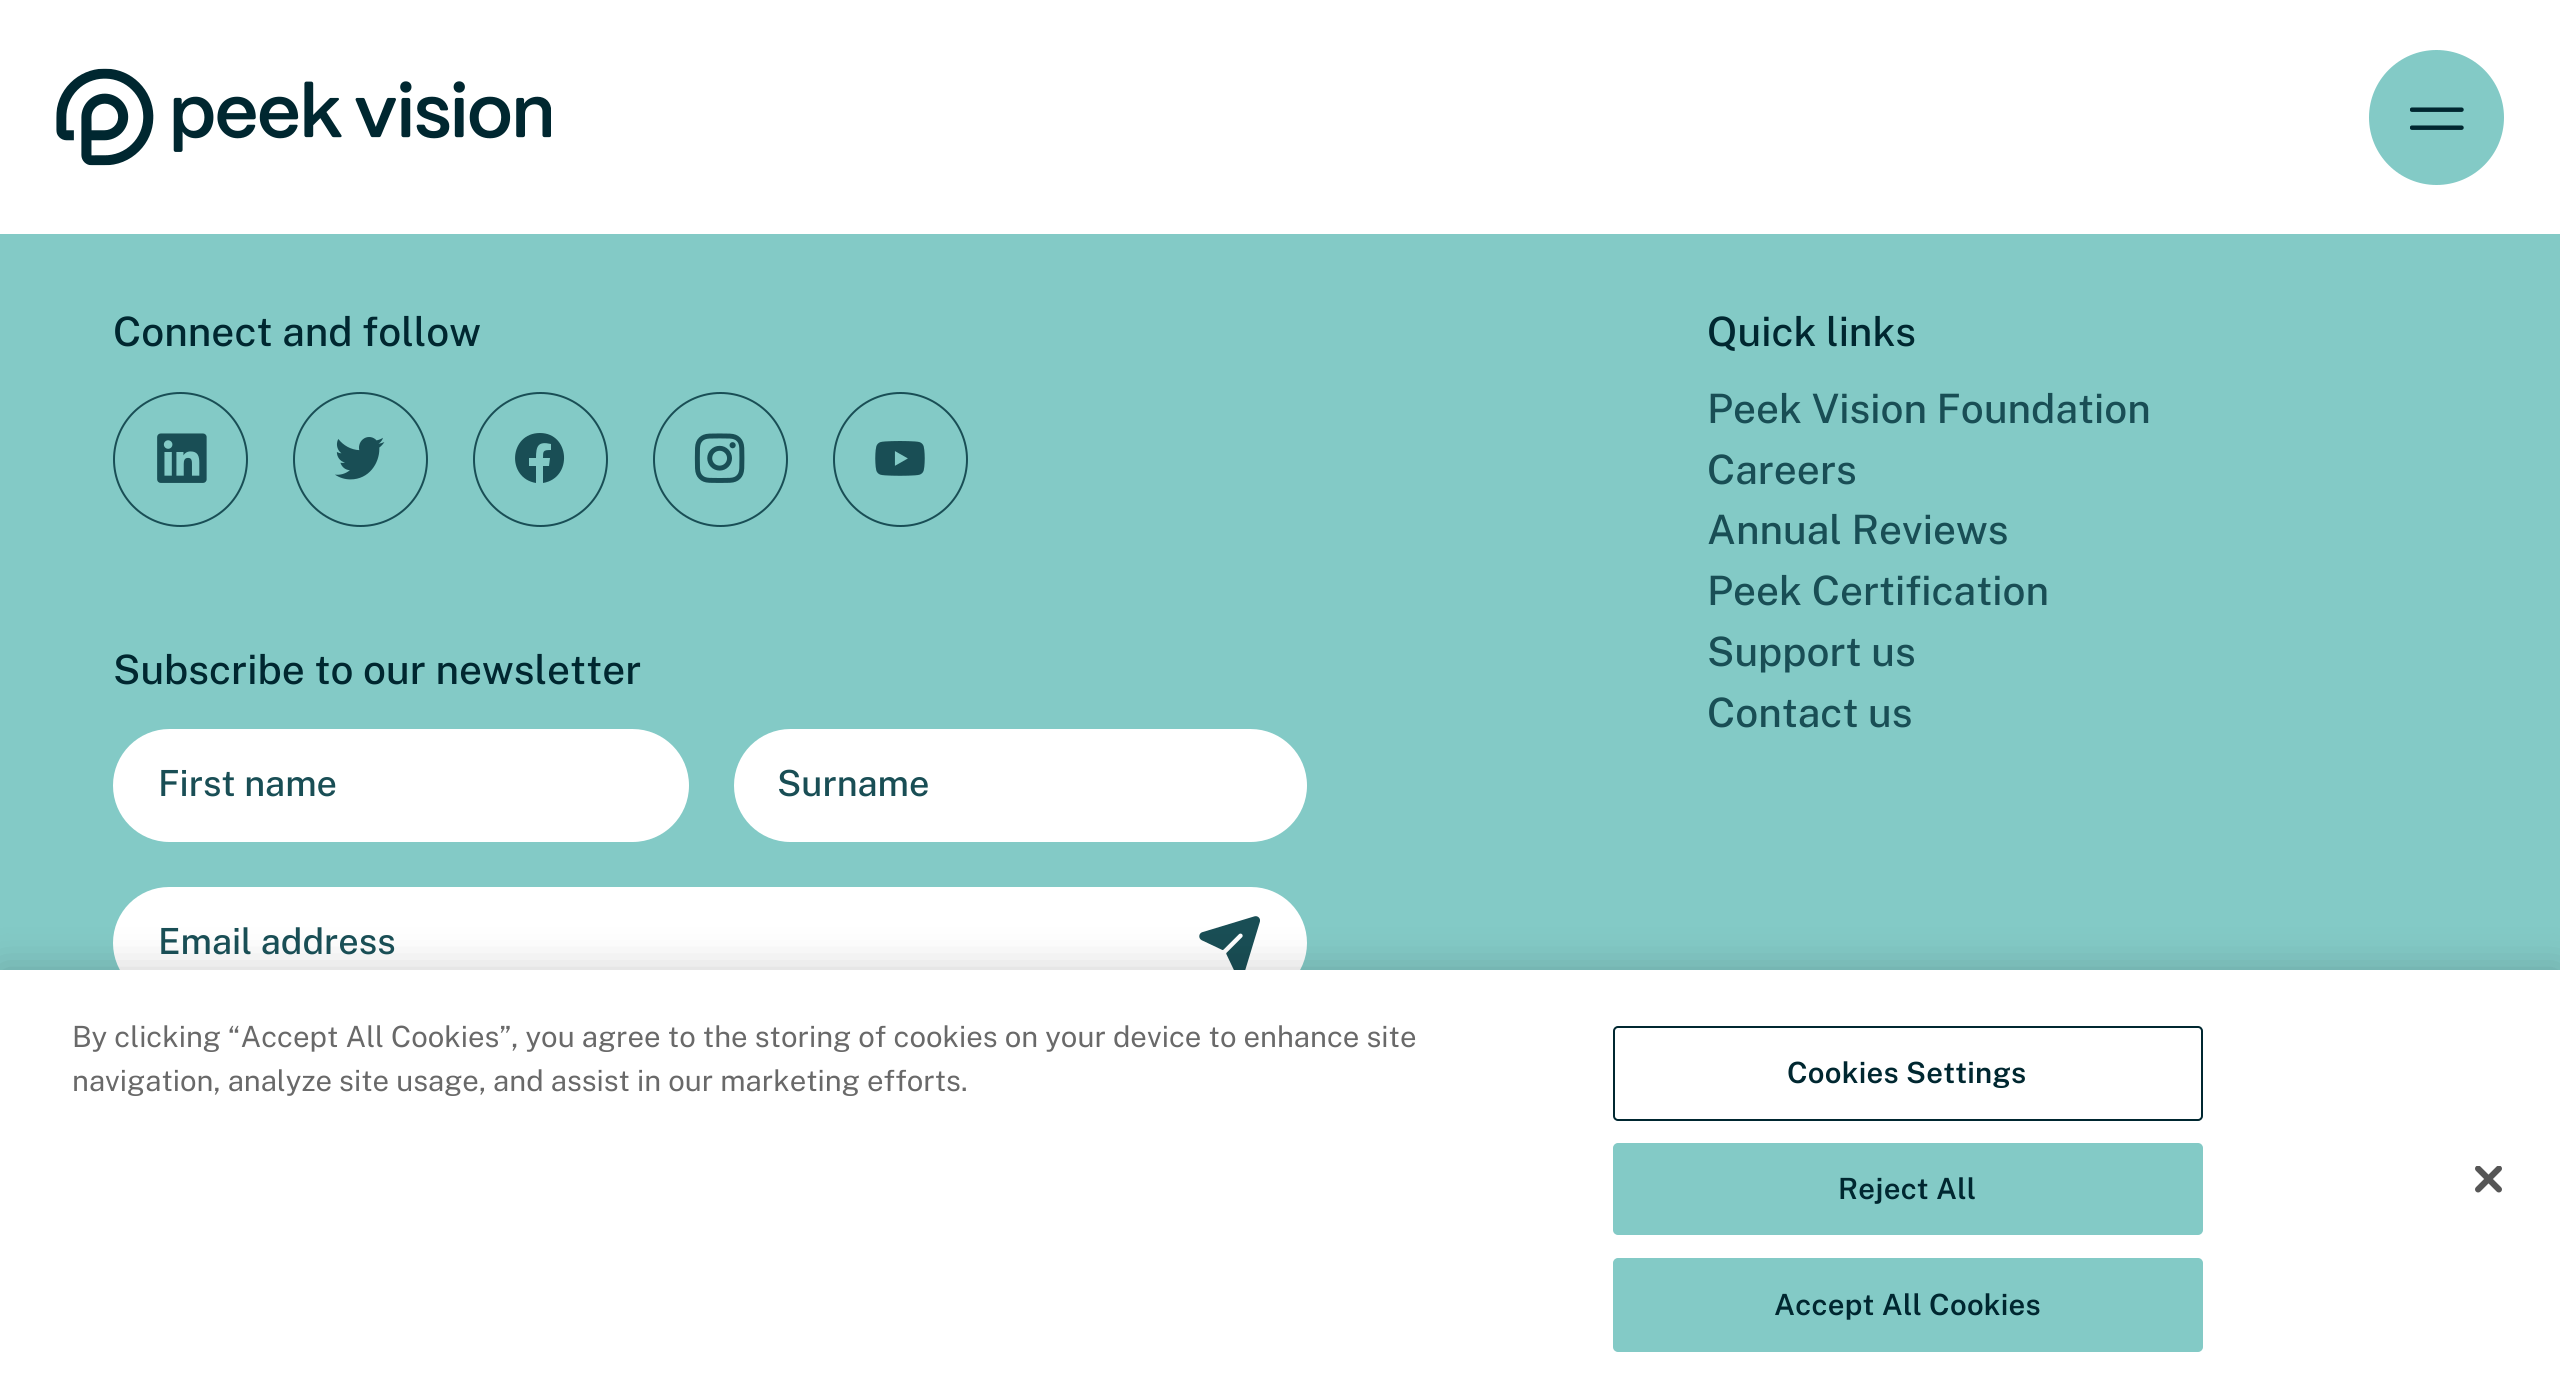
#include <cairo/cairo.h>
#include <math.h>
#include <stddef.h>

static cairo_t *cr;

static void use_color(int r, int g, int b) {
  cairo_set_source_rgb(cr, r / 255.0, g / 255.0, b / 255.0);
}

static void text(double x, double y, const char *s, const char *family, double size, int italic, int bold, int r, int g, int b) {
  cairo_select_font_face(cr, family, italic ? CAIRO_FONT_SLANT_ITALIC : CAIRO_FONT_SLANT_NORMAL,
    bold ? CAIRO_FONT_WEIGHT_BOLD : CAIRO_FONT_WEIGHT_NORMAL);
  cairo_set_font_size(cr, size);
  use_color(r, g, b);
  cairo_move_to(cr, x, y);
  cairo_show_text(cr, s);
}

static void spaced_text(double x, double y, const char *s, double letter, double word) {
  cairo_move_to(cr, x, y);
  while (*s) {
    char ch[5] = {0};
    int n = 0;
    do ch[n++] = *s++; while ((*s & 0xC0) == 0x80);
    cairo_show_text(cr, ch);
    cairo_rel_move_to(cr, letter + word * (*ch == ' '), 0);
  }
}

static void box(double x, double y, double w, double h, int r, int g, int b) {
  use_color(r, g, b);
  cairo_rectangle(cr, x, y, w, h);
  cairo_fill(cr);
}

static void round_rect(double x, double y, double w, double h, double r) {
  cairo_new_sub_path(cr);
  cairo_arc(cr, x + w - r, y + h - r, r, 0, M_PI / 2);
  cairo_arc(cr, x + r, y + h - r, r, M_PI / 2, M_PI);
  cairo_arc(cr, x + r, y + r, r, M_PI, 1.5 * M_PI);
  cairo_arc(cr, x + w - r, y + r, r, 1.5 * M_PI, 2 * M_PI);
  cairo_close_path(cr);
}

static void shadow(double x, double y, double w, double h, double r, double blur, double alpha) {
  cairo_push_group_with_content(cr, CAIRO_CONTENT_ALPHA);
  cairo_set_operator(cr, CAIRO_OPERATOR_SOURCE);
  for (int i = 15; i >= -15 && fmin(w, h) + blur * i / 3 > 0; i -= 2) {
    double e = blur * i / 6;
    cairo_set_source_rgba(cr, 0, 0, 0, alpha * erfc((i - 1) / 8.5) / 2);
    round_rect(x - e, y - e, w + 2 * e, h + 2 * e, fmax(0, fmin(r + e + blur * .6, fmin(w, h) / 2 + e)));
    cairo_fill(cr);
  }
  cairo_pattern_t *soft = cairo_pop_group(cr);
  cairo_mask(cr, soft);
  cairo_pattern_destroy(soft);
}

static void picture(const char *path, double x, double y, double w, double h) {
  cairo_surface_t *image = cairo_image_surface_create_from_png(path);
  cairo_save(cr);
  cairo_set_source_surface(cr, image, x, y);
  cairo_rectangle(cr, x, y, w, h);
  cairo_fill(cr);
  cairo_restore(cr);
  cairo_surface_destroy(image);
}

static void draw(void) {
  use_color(131, 202, 198);
  cairo_paint(cr);
  box(0, 0, 2560, 234, 255, 255, 255);
  picture("img_01.png", 56, 68, 495, 98);
  use_color(131, 202, 198);
  cairo_arc(cr, 2436.5, 117.5, 66.5, 0, 2 * M_PI);
  cairo_fill_preserve(cr);
  cairo_stroke(cr);
  picture("img_02.png", 2410, 107, 54, 23);
  cairo_arc(cr, 180.5, 459.5, 66.5, 0, 2 * M_PI);
  use_color(25, 78, 85);
  cairo_stroke(cr);
  picture("img_03.png", 157, 433, 50, 50);
  cairo_arc(cr, 360.5, 459.5, 66.5, 0, 2 * M_PI);
  cairo_stroke(cr);
  picture("img_04.png", 335, 437, 50, 43);
  cairo_arc(cr, 540.5, 459.5, 66.5, 0, 2 * M_PI);
  cairo_stroke(cr);
  cairo_new_path(cr);
  cairo_move_to(cr, 540, 433);
  cairo_curve_to(cr, 509, 433, 506, 478, 536, 483);
  cairo_line_to(cr, 536, 466);
  cairo_line_to(cr, 529, 466);
  cairo_line_to(cr, 529, 458);
  cairo_line_to(cr, 536, 458);
  cairo_curve_to(cr, 536, 446, 538, 441, 551, 444);
  cairo_line_to(cr, 551, 450);
  cairo_curve_to(cr, 543, 450, 543, 451, 543, 458);
  cairo_line_to(cr, 550, 458);
  cairo_line_to(cr, 549, 466);
  cairo_line_to(cr, 543, 466);
  cairo_line_to(cr, 543, 483);
  cairo_curve_to(cr, 573, 478, 570, 433, 540, 433);
  cairo_close_path(cr);
  cairo_fill(cr);
  cairo_arc(cr, 720.5, 459.5, 66.5, 0, 2 * M_PI);
  cairo_stroke(cr);
  picture("img_05.png", 694, 433, 51, 50);
  cairo_arc(cr, 900.5, 459.5, 66.5, 0, 2 * M_PI);
  cairo_stroke(cr);
  picture("img_06.png", 875, 441, 50, 35);
  use_color(255, 255, 255);
  round_rect(113, 729, 576, 113, 56.5);
  cairo_fill(cr);
  round_rect(734, 729, 573, 113, 56.5);
  cairo_fill(cr);
  round_rect(113, 887, 1194, 112, 56);
  cairo_fill(cr);
  picture("img_07.png", 1199, 916, 61, 54);
  use_color(0, 0, 0);
  shadow(0, 970, 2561, 427, 0, 20, 0.2);
  box(0, 970, 2560, 427, 255, 255, 255);
  round_rect(1614, 1027, 588, 93, 4);
  use_color(0, 39, 48);
  cairo_stroke(cr);
  use_color(131, 202, 198);
  round_rect(1614, 1144, 588, 90, 4);
  cairo_fill_preserve(cr);
  cairo_stroke(cr);
  round_rect(1614, 1259, 588, 92, 4);
  cairo_fill_preserve(cr);
  cairo_stroke(cr);
  picture("img_08.png", 2475, 1166, 27, 27);
  text(113, 346, "Connect and follow", "Public Sans Medium", 40.5, 0, 0, 0, 39, 48);
  text(113, 684, "Subscribe to our newsletter", "Public Sans Medium", 40.5, 0, 0, 0, 39, 48);
  text(158, 796, "First name", "Public Sans Medium", 36, 0, 0, 25, 78, 85);
  text(777, 796, "Surname", "Public Sans Medium", 36, 0, 0, 25, 78, 85);
  text(158, 954, "Email address", "Public Sans Medium", 36, 0, 0, 25, 78, 85);
  text(1707, 346, "Quick links", "Public Sans Medium", 40.5, 0, 0, 0, 39, 48);
  text(1707, 423, "Peek Vision Foundation", "Public Sans Medium", 40.5, 0, 0, 25, 78, 85);
  text(1707, 484, "Careers", "Public Sans Medium", 40.5, 0, 0, 25, 78, 85);
  text(1707, 544, "Annual Reviews", "Public Sans Medium", 40.5, 0, 0, 25, 78, 85);
  text(1707, 605, "Peek Certification", "Public Sans Medium", 40.5, 0, 0, 25, 78, 85);
  text(1707, 666, "Support us", "Public Sans Medium", 40.5, 0, 0, 25, 78, 85);
  text(1707, 727, "Contact us", "Public Sans Medium", 40.5, 0, 0, 25, 78, 85);
  text(72, 1047, "By clicking “Accept All Cookies”, you agree to the storing of cookies on your device to enhance site", "Public Sans", 29.25, 0, 0, 105, 105, 105);
  text(72, 1091, "navigation, analyze site usage, and assist in our marketing efforts.", "Public Sans", 29.25, 0, 0, 105, 105, 105);
  cairo_select_font_face(cr, "Public Sans SemiBold", CAIRO_FONT_SLANT_NORMAL, CAIRO_FONT_WEIGHT_NORMAL);
  use_color(0, 39, 48);
  spaced_text(1787, 1083, "Cookies Settings", 0.25, 0);
  spaced_text(1838, 1199, "Reject All", 0.25, 0);
  spaced_text(1774, 1315, "Accept All Cookies", 0.25, 0);
}

int main(void) {
  cairo_surface_t *surface = cairo_image_surface_create(CAIRO_FORMAT_RGB24, 2560, 1397);
  cr = cairo_create(surface);
  cairo_font_options_t *options = cairo_font_options_create();
  cairo_font_options_set_hint_metrics(options, CAIRO_HINT_METRICS_OFF);
  cairo_font_options_set_hint_style(options, CAIRO_HINT_STYLE_NONE);
  cairo_set_font_options(cr, options);
  cairo_set_miter_limit(cr, 4);
  draw();
  cairo_surface_write_to_png(surface, "out.png");
  cairo_font_options_destroy(options);
  cairo_destroy(cr);
  cairo_surface_destroy(surface);
  return 0;
}
